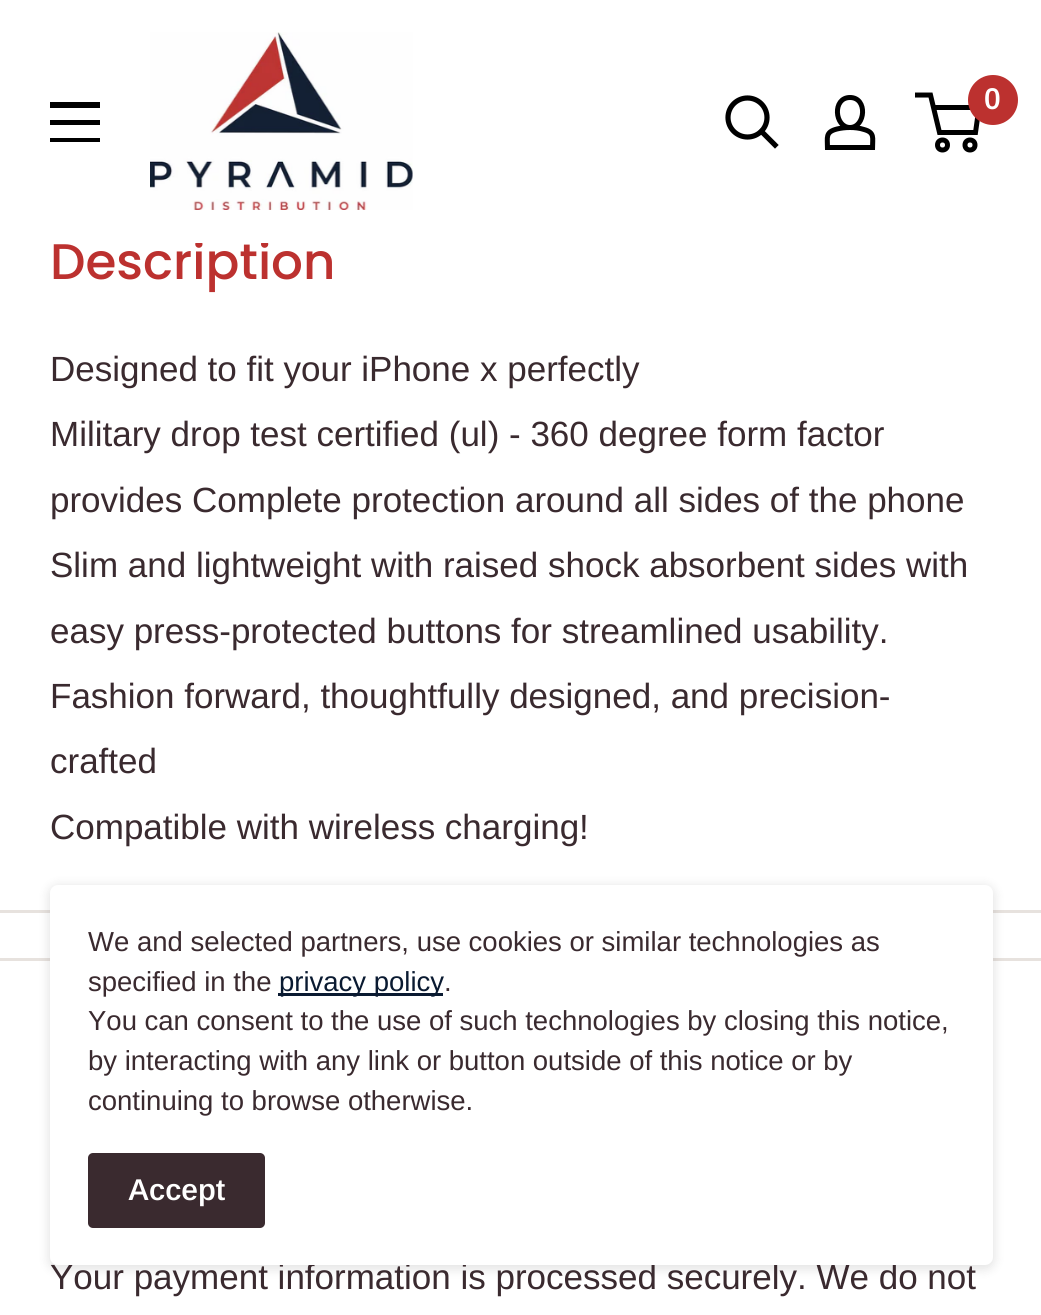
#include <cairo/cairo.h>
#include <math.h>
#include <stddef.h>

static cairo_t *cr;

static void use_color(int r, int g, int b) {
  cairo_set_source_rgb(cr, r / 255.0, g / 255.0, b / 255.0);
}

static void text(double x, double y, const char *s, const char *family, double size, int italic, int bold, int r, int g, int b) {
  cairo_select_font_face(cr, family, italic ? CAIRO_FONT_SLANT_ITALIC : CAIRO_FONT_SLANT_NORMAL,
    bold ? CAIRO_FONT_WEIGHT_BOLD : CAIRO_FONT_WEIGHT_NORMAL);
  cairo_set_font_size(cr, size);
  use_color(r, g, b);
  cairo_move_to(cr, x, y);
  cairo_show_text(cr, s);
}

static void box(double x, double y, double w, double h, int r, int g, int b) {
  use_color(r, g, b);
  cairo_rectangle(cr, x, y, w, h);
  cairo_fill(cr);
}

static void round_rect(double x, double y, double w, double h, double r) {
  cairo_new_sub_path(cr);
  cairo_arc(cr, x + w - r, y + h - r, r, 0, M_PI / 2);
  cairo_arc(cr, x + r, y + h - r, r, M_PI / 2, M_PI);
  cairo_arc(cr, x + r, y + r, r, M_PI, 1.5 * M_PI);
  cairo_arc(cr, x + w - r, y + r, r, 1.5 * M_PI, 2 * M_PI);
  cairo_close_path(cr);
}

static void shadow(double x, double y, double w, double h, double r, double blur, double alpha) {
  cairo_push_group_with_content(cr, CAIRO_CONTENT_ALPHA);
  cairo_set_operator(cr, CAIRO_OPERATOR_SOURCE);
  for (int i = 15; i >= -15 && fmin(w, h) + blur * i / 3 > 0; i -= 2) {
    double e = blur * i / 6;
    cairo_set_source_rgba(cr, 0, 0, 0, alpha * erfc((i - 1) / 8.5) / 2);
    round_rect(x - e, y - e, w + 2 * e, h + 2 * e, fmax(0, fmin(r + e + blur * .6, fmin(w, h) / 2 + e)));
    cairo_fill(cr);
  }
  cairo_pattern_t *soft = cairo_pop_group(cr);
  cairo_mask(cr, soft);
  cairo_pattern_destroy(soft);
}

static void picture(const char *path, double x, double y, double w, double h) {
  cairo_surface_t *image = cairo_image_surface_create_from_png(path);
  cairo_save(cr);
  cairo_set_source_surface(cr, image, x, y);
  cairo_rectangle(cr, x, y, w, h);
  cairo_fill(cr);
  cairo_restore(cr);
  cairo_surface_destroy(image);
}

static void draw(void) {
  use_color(255, 255, 255);
  cairo_paint(cr);
  picture("img_01.png", 150, 32, 263, 178);
  cairo_new_path(cr);
  cairo_move_to(cr, 775, 145);
  cairo_line_to(cr, 761.5, 131.5);
  use_color(0, 0, 0);
  cairo_set_line_width(cr, 5.2);
  cairo_set_line_cap(cr, CAIRO_LINE_CAP_SQUARE);
  cairo_stroke(cr);
  cairo_arc(cr, 747.5, 117.5, 19.5, 0, 2 * M_PI);
  cairo_set_line_cap(cr, CAIRO_LINE_CAP_BUTT);
  cairo_stroke(cr);
  cairo_new_path(cr);
  cairo_move_to(cr, 850, 127.5);
  cairo_curve_to(cr, 854.5, 127.5, 859.5, 128, 864, 129.5);
  cairo_curve_to(cr, 875, 132.5, 872.5, 138, 872.5, 147.5);
  cairo_line_to(cr, 827.5, 147.5);
  cairo_curve_to(cr, 827.5, 137.5, 825, 132, 837, 129);
  cairo_curve_to(cr, 841, 128, 845.5, 127.5, 850, 127.5);
  cairo_close_path(cr);
  cairo_move_to(cr, 850, 127.5);
  cairo_curve_to(cr, 834.5, 127.5, 832, 97.5, 850, 97.5);
  cairo_curve_to(cr, 868, 97.5, 865.5, 127.5, 850, 127.5);
  cairo_close_path(cr);
  cairo_set_line_width(cr, 5);
  cairo_stroke(cr);
  cairo_arc(cr, 942.5, 145, 5, 0, 2 * M_PI);
  cairo_stroke(cr);
  cairo_arc(cr, 970, 145, 5, 0, 2 * M_PI);
  cairo_stroke(cr);
  cairo_new_path(cr);
  cairo_move_to(cr, 933.5, 107.5);
  cairo_line_to(cr, 979, 107.5);
  cairo_line_to(cr, 975.5, 132.5);
  cairo_line_to(cr, 939.5, 132.5);
  cairo_line_to(cr, 930.5, 95);
  cairo_line_to(cr, 915, 95);
  cairo_stroke(cr);
  use_color(188, 49, 47);
  cairo_arc(cr, 993, 100, 25, 0, 2 * M_PI);
  cairo_fill(cr);
  use_color(0, 0, 0);
  cairo_set_fill_rule(cr, CAIRO_FILL_RULE_EVEN_ODD);
  cairo_new_path(cr);
  cairo_move_to(cr, 50, 138);
  cairo_line_to(cr, 100, 138);
  cairo_line_to(cr, 100, 142);
  cairo_line_to(cr, 50, 142);
  cairo_close_path(cr);
  cairo_move_to(cr, 50, 102);
  cairo_line_to(cr, 100, 102);
  cairo_line_to(cr, 100, 108);
  cairo_line_to(cr, 50, 108);
  cairo_close_path(cr);
  cairo_move_to(cr, 50, 120);
  cairo_line_to(cr, 100, 120);
  cairo_line_to(cr, 100, 125);
  cairo_line_to(cr, 50, 125);
  cairo_close_path(cr);
  cairo_fill(cr);
  box(0, 910, 1041, 3, 231, 226, 222);
  box(0, 958, 1041, 3, 231, 226, 222);
  use_color(0, 0, 0);
  shadow(48, 885, 947, 385, 10, 5, 0.1);
  text(984, 109, "0", "Arimo SemiBold", 30, 0, 0, 255, 255, 255);
  text(50, 279, "Description", "Poppins Medium", 50, 0, 0, 188, 49, 47);
  box(195, 240, 73, 3, 255, 255, 255);
  text(50, 381, "Designed to fit your iPhone x perfectly", "Arimo", 35, 0, 0, 58, 42, 47);
  text(50, 446, "Military drop test certified (ul) - 360 degree form factor", "Arimo", 35, 0, 0, 58, 42, 47);
  text(50, 512, "provides Complete protection around all sides of the phone", "Arimo", 35, 0, 0, 58, 42, 47);
  text(50, 577, "Slim and lightweight with raised shock absorbent sides with", "Arimo", 35, 0, 0, 58, 42, 47);
  text(50, 643, "easy press-protected buttons for streamlined usability.", "Arimo", 35, 0, 0, 58, 42, 47);
  text(50, 708, "Fashion forward, thoughtfully designed, and precision-", "Arimo", 35, 0, 0, 58, 42, 47);
  text(50, 773, "crafted", "Arimo", 35, 0, 0, 58, 42, 47);
  text(50, 839, "Compatible with wireless charging!", "Arimo", 35, 0, 0, 58, 42, 47);
  text(50, 1289, "Your payment information is processed securely. We do not", "Arimo", 35, 0, 0, 58, 42, 47);
  use_color(255, 255, 255);
  round_rect(50, 885, 943, 380, 8);
  cairo_fill(cr);
  text(88, 951, "We and selected partners, use cookies or similar technologies as", "Arimo", 27.5, 0, 0, 58, 42, 47);
  text(88, 991, "specified in the", "Arimo", 27.5, 0, 0, 58, 42, 47);
  box(278, 993, 165, 3, 10, 26, 49);
  text(279, 991, "privacy policy", "Arimo", 27.5, 0, 0, 10, 26, 49);
  text(444, 991, ".", "Arimo", 27.5, 0, 0, 58, 42, 47);
  text(88, 1030, "You can consent to the use of such technologies by closing this notice,", "Arimo", 27.5, 0, 0, 58, 42, 47);
  text(88, 1070, "by interacting with any link or button outside of this notice or by", "Arimo", 27.5, 0, 0, 58, 42, 47);
  text(88, 1110, "continuing to browse otherwise.", "Arimo", 27.5, 0, 0, 58, 42, 47);
  round_rect(88, 1153, 177, 75, 5);
  cairo_fill(cr);
  text(128, 1200, "Accept", "Arimo SemiBold", 30, 0, 0, 255, 255, 255);
}

int main(void) {
  cairo_surface_t *surface = cairo_image_surface_create(CAIRO_FORMAT_RGB24, 1041, 1315);
  cr = cairo_create(surface);
  cairo_font_options_t *options = cairo_font_options_create();
  cairo_font_options_set_hint_metrics(options, CAIRO_HINT_METRICS_OFF);
  cairo_font_options_set_hint_style(options, CAIRO_HINT_STYLE_NONE);
  cairo_set_font_options(cr, options);
  cairo_set_miter_limit(cr, 4);
  draw();
  cairo_surface_write_to_png(surface, "out.png");
  cairo_font_options_destroy(options);
  cairo_destroy(cr);
  cairo_surface_destroy(surface);
  return 0;
}
